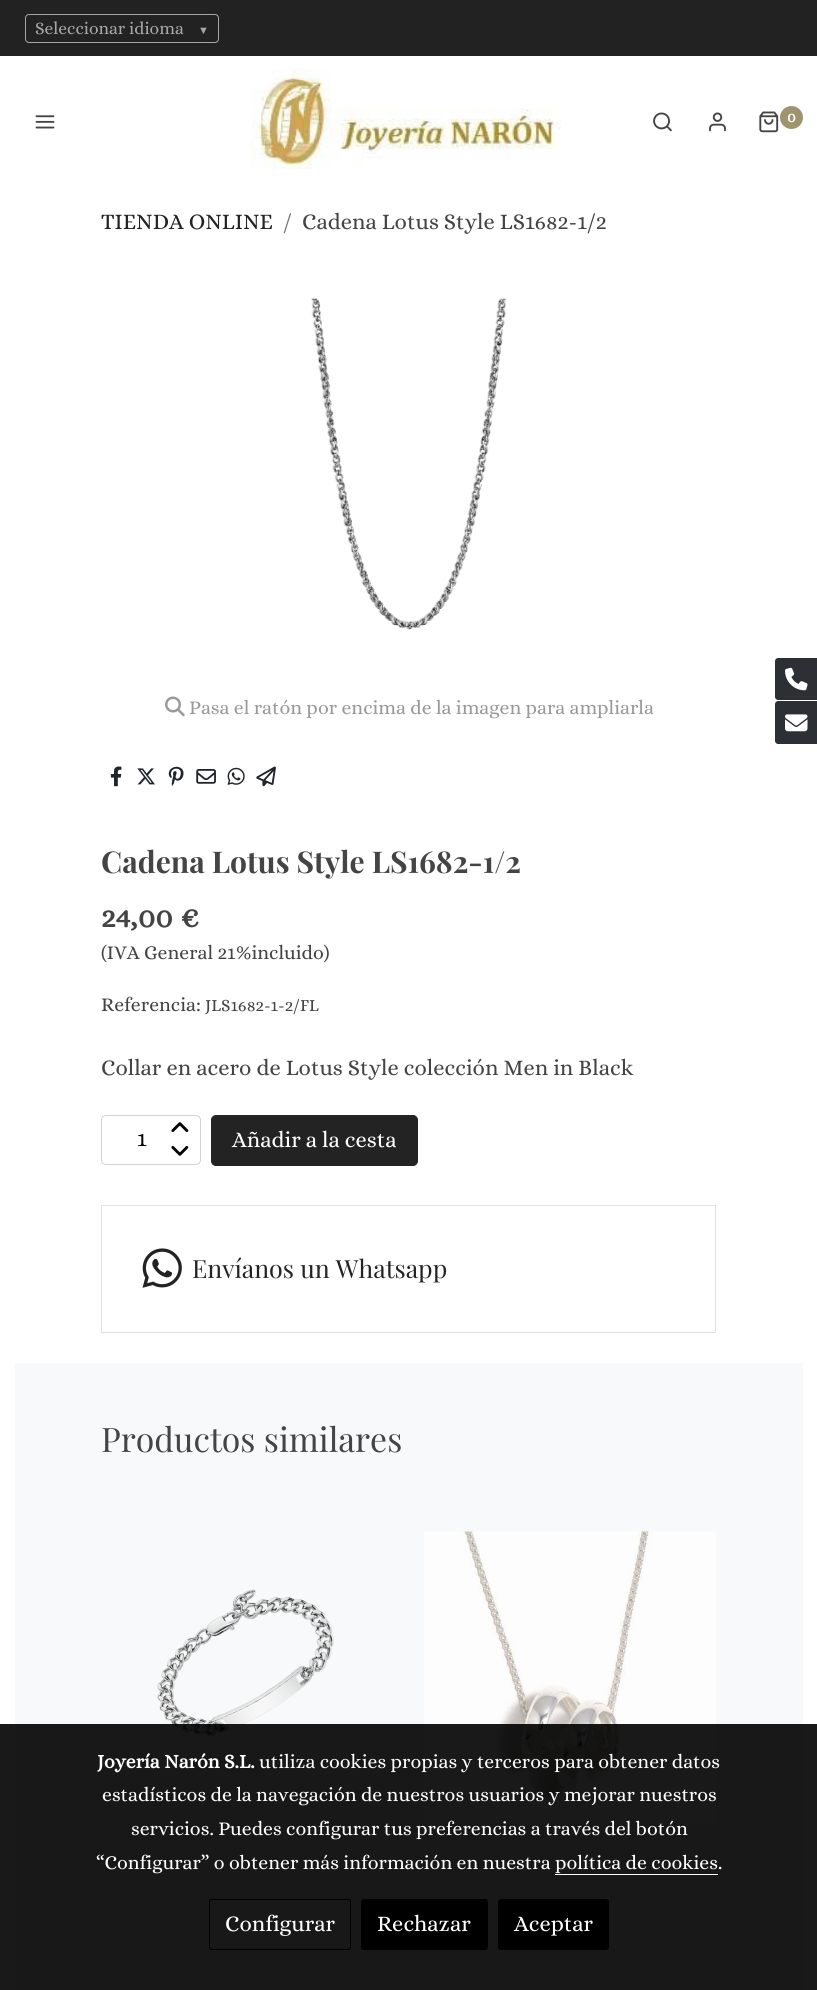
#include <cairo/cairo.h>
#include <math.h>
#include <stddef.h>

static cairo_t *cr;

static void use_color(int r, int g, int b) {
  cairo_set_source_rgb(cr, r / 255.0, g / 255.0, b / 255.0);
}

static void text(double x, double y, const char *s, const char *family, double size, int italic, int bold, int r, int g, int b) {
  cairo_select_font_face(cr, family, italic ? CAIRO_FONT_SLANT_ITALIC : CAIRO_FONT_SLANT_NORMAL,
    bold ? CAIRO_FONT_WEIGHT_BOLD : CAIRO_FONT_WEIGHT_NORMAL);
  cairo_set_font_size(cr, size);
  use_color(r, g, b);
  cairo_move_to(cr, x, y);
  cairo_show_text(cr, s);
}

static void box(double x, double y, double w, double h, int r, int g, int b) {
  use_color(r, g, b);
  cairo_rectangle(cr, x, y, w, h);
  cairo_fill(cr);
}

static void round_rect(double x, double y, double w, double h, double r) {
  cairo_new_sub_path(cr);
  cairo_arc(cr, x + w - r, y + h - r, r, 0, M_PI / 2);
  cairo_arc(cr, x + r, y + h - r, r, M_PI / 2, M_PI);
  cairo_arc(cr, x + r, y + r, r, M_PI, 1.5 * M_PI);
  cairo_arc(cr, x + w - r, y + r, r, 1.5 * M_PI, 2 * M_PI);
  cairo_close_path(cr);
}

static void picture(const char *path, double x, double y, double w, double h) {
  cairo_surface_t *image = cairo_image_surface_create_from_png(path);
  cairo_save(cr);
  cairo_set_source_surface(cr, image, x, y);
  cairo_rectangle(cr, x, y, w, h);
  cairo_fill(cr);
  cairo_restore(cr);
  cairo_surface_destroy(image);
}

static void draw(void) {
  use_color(255, 255, 255);
  cairo_paint(cr);
  box(0, 0, 817, 56, 34, 34, 34);
  round_rect(25.5, 14.5, 193, 28, 3.5);
  use_color(167, 167, 167);
  cairo_set_line_width(cr, 1);
  cairo_stroke(cr);
  picture("img_01.png", 35, 115, 20, 14);
  picture("img_02.png", 251, 69, 310, 100);
  picture("img_03.png", 653, 112, 19, 20);
  picture("img_04.png", 709, 112, 17, 20);
  picture("img_05.png", 759, 111, 20, 22);
  use_color(160, 147, 112);
  cairo_arc(cr, 791.5, 117.5, 11.5, 0, 2 * M_PI);
  cairo_fill(cr);
  picture("img_06.png", 311, 298, 196, 332);
  picture("img_07.png", 165, 696, 20, 21);
  picture("img_08.png", 110, 766, 12, 21);
  picture("img_09.png", 137, 768, 18, 17);
  picture("img_10.png", 168, 766, 16, 20);
  picture("img_11.png", 196, 769, 20, 15);
  picture("img_12.png", 227, 767, 18, 18);
  picture("img_13.png", 256, 766, 20, 21);
  round_rect(101.5, 1115.5, 99, 49, 4.5);
  use_color(206, 212, 218);
  cairo_stroke(cr);
  picture("img_14.png", 171, 1122, 18, 10);
  picture("img_15.png", 171, 1145, 18, 11);
  use_color(35, 35, 35);
  round_rect(211.5, 1115.5, 206, 50, 4.5);
  cairo_fill_preserve(cr);
  cairo_stroke(cr);
  cairo_rectangle(cr, 101.5, 1205.5, 614, 127);
  use_color(222, 226, 230);
  cairo_stroke(cr);
  picture("img_16.png", 142, 1248, 40, 40);
  box(15, 1363, 788, 627, 248, 249, 250);
  picture("img_17.png", 157, 1589, 177, 148);
  picture("img_18.png", 424, 1531, 292, 293);
  use_color(44, 48, 52);
  cairo_new_path(cr);
  cairo_move_to(cr, 778, 658);
  cairo_line_to(cr, 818, 658);
  cairo_line_to(cr, 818, 700);
  cairo_line_to(cr, 778, 700);
  cairo_curve_to(cr, 776.5, 700, 775, 698.5, 775, 697);
  cairo_line_to(cr, 775, 661);
  cairo_curve_to(cr, 775, 659.5, 776.5, 658, 778, 658);
  cairo_close_path(cr);
  cairo_fill(cr);
  picture("img_19.png", 785, 667, 23, 24);
  cairo_new_path(cr);
  cairo_move_to(cr, 778, 701);
  cairo_line_to(cr, 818, 701);
  cairo_line_to(cr, 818, 744);
  cairo_line_to(cr, 778, 744);
  cairo_curve_to(cr, 776.5, 744, 775, 742.5, 775, 741);
  cairo_line_to(cr, 775, 704);
  cairo_curve_to(cr, 775, 702.5, 776.5, 701, 778, 701);
  cairo_close_path(cr);
  cairo_fill(cr);
  picture("img_20.png", 785, 714, 23, 18);
  cairo_set_source_rgba(cr, 0, 0, 0, 0.9);
  cairo_rectangle(cr, 0, 1724, 817, 266);
  cairo_fill(cr);
  box(555, 1874, 163, 1, 255, 255, 255);
  round_rect(209.5, 1899.5, 141, 50, 2.5);
  use_color(0, 0, 0);
  cairo_stroke(cr);
  round_rect(361.5, 1899.5, 126, 50, 2.5);
  cairo_fill_preserve(cr);
  cairo_stroke(cr);
  round_rect(498.5, 1899.5, 110, 50, 2.5);
  cairo_fill_preserve(cr);
  cairo_stroke(cr);
  text(35, 34, "Seleccionar idioma", "Alice", 17.5, 0, 0, 167, 167, 167);
  text(198, 34, "▼", "Liberation Serif", 11, 0, 0, 167, 167, 167);
  text(787, 122, "0", "Alice", 15, 0, 1, 255, 255, 255);
  text(101, 229, "TIENDA ONLINE", "Alice", 22.5, 0, 0, 35, 35, 35);
  text(283, 229, "/", "Alice", 22.5, 0, 0, 108, 117, 125);
  text(302, 229, "Cadena Lotus Style LS1682-1/2", "Alice", 22.5, 0, 0, 68, 68, 68);
  text(189, 714, "Pasa el ratón por encima de la imagen para ampliarla", "Alice", 19.7, 0, 0, 153, 153, 153);
  text(101, 873, "Cadena Lotus Style LS1682-1/2", "Playfair Display", 30, 0, 1, 68, 68, 68);
  text(101, 927, "24,00 €", "Alice", 30, 0, 1, 68, 68, 68);
  text(101, 959, "(IVA General 21%incluido)", "Alice", 19.7, 0, 0, 68, 68, 68);
  text(101, 1011, "Referencia:", "Alice", 19.7, 0, 0, 68, 68, 68);
  text(205, 1011, "JLS1682-1-2/FL", "Alice", 17.25, 0, 0, 68, 68, 68);
  text(101, 1075, "Collar en acero de Lotus Style colección Men in Black", "Alice", 22.5, 0, 0, 68, 68, 68);
  text(137, 1146, "1", "Alice", 22.5, 0, 0, 0, 0, 0);
  text(232, 1147, "Añadir a la cesta", "Alice", 22.5, 0, 0, 255, 255, 255);
  text(192, 1278, "Envíanos un Whatsapp", "Playfair Display", 25, 0, 0, 35, 35, 35);
  text(101, 1452, "Productos similares", "Playfair Display", 33.75, 0, 0, 68, 68, 68);
  text(97, 1768, "Joyería Narón S.L.", "Alice", 19.7, 0, 1, 255, 255, 255);
  text(259, 1768, "utiliza cookies propias y terceros para obtener datos", "Alice", 19.7, 0, 0, 255, 255, 255);
  text(102, 1801, "estadísticos de la navegación de nuestros usuarios y mejorar nuestros", "Alice", 19.7, 0, 0, 255, 255, 255);
  text(131, 1835, "servicios. Puedes configurar tus preferencias a través del botón", "Alice", 19.7, 0, 0, 255, 255, 255);
  text(96, 1869, "“Configurar” o obtener más información en nuestra política de cookies.", "Alice", 19.7, 0, 0, 255, 255, 255);
  text(225, 1931, "Configurar", "Alice", 22.5, 0, 0, 255, 255, 255);
  text(377, 1931, "Rechazar", "Alice", 22.5, 0, 0, 255, 255, 255);
  text(514, 1931, "Aceptar", "Alice", 22.5, 0, 0, 255, 255, 255);
}

int main(void) {
  cairo_surface_t *surface = cairo_image_surface_create(CAIRO_FORMAT_RGB24, 817, 1990);
  cr = cairo_create(surface);
  cairo_font_options_t *options = cairo_font_options_create();
  cairo_font_options_set_hint_metrics(options, CAIRO_HINT_METRICS_OFF);
  cairo_font_options_set_hint_style(options, CAIRO_HINT_STYLE_NONE);
  cairo_set_font_options(cr, options);
  cairo_set_miter_limit(cr, 4);
  draw();
  cairo_surface_write_to_png(surface, "out.png");
  cairo_font_options_destroy(options);
  cairo_destroy(cr);
  cairo_surface_destroy(surface);
  return 0;
}
